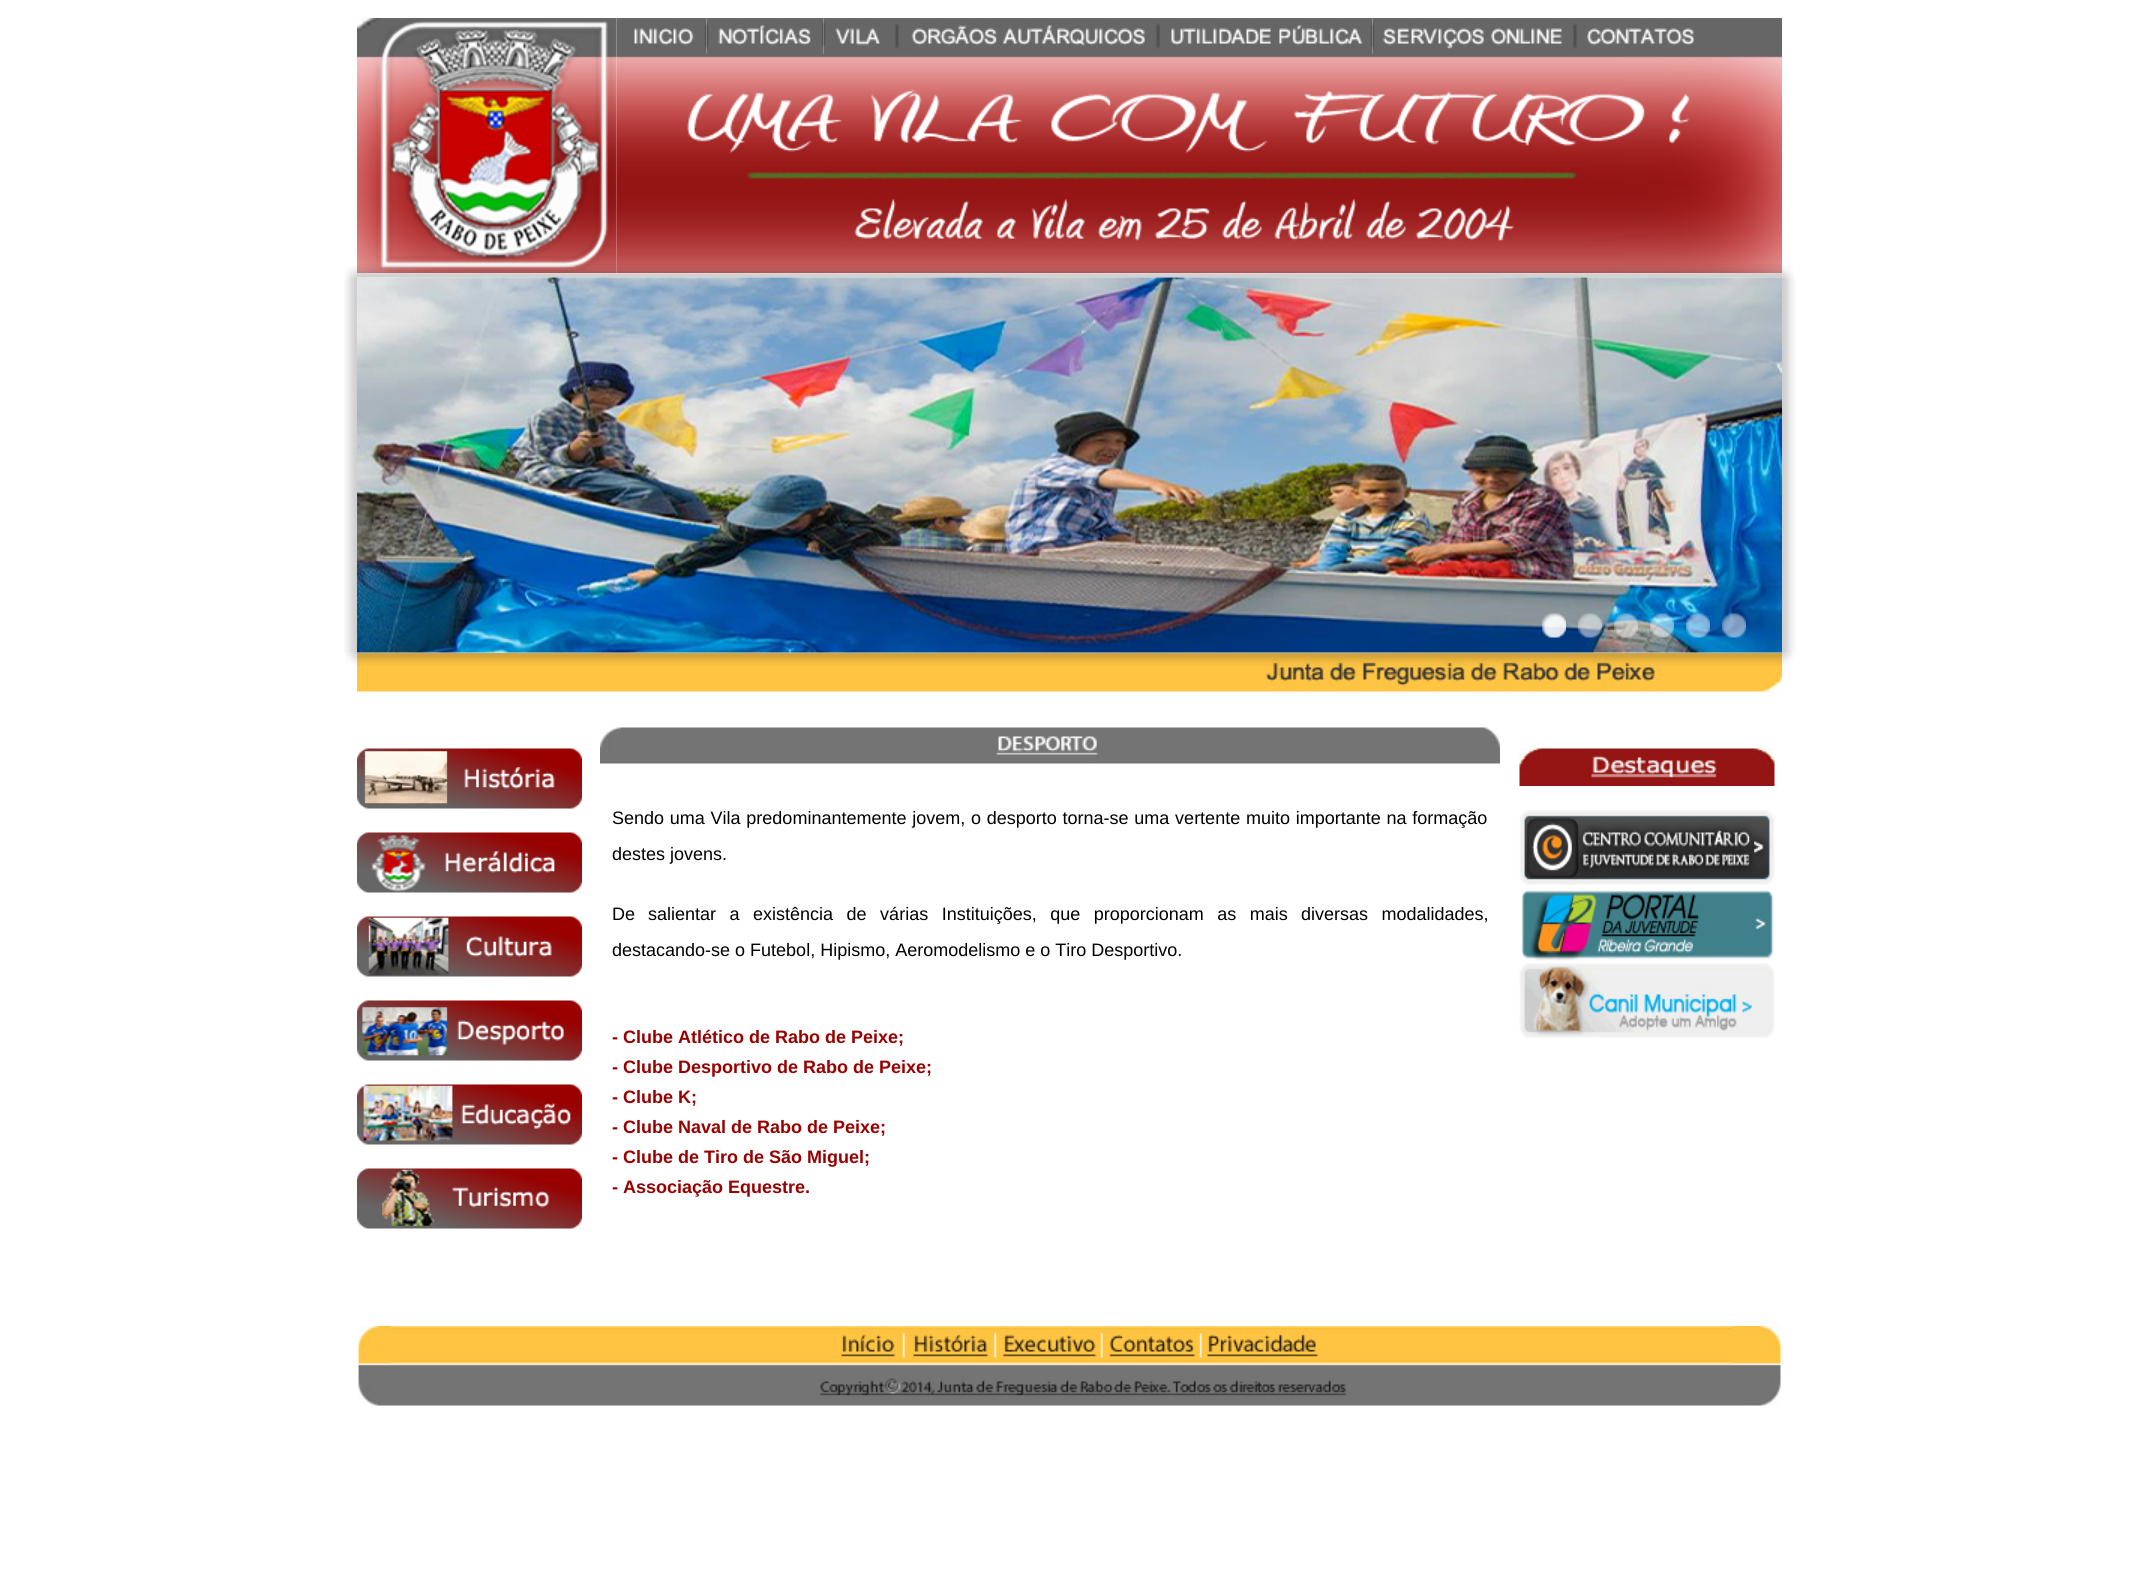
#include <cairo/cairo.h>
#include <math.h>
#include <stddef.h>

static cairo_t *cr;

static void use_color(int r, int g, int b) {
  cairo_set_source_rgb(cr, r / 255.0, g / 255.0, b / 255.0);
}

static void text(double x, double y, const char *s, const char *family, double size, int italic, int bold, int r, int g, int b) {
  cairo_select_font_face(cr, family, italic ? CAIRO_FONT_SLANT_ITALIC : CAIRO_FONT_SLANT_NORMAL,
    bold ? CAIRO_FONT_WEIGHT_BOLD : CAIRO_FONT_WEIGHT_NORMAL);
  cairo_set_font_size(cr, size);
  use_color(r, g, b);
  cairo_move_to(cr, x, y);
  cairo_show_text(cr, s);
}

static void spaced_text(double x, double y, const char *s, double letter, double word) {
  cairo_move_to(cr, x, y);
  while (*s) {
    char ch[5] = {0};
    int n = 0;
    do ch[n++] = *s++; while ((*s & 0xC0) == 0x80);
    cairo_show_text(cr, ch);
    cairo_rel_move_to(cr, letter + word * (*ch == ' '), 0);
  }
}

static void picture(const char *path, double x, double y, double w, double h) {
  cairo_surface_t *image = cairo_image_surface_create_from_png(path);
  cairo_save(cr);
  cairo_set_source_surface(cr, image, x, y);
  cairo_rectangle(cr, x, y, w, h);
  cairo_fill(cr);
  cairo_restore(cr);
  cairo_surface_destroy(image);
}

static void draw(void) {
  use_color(255, 255, 255);
  cairo_paint(cr);
  picture("img_01.png", 357, 18, 260, 255);
  picture("img_02.png", 616, 18, 91, 36);
  picture("img_03.png", 706, 18, 118, 36);
  picture("img_04.png", 823, 18, 74, 36);
  picture("img_05.png", 897, 18, 261, 36);
  picture("img_06.png", 1158, 18, 215, 36);
  picture("img_07.png", 1372, 18, 203, 36);
  picture("img_08.png", 1575, 18, 207, 36);
  picture("img_09.png", 616, 54, 1166, 219);
  picture("img_10.png", 345, 266, 12, 12);
  picture("img_11.png", 357, 264, 1425, 14);
  picture("img_12.png", 1782, 265, 12, 13);
  picture("img_15.png", 345, 652, 12, 13);
  picture("img_13.png", 344, 277, 13, 376);
  picture("img_14.png", 1782, 277, 14, 376);
  picture("img_25.png", 357, 653, 1425, 39);
  picture("img_16.png", 357, 652, 1425, 14);
  picture("img_17.png", 1782, 652, 12, 12);
  picture("img_18.png", 357, 277, 1425, 376);
  picture("img_19.png", 1542, 613, 24, 25);
  picture("img_20.png", 1578, 613, 24, 25);
  picture("img_21.png", 1614, 613, 24, 25);
  picture("img_22.png", 1650, 613, 24, 25);
  picture("img_23.png", 1686, 613, 24, 25);
  picture("img_24.png", 1722, 613, 24, 25);
  picture("img_26.png", 357, 748, 225, 61);
  picture("img_27.png", 357, 832, 225, 61);
  picture("img_28.png", 357, 916, 225, 61);
  picture("img_29.png", 357, 1000, 225, 61);
  picture("img_30.png", 357, 1084, 225, 61);
  picture("img_31.png", 357, 1168, 225, 61);
  picture("img_32.png", 600, 727, 900, 37);
  picture("img_33.png", 1519, 748, 256, 38);
  picture("img_34.png", 1519, 810, 256, 75);
  picture("img_35.png", 1521, 890, 253, 71);
  picture("img_36.png", 1519, 963, 256, 75);
  picture("img_37.png", 358, 1326, 1423, 80);
  cairo_select_font_face(cr, "Liberation Sans", CAIRO_FONT_SLANT_NORMAL, CAIRO_FONT_WEIGHT_NORMAL);
  cairo_set_font_size(cr, 18);
  use_color(0, 0, 0);
  spaced_text(612, 824, "Sendo uma Vila predominantemente jovem,", 0, 0.75);
  spaced_text(971, 824, "o desporto torna-se uma vertente muito importante na formação", 0, 0.75);
  text(612, 860, "destes jovens.", "Liberation Sans", 18, 0, 0, 0, 0, 0);
  text(612, 920, "De", "Liberation Sans", 18, 0, 0, 0, 0, 0);
  spaced_text(648, 920, "salientar a existência de várias Instituições, que proporcionam as mais", 0, 8.5);
  spaced_text(1301, 920, "diversas modalidades,", 0, 8.5);
  text(612, 956, "destacando-se o Futebol, Hipismo, Aeromodelismo e o Tiro Desportivo.", "Liberation Sans", 18, 0, 0, 0, 0, 0);
  text(612, 1043, "- Clube Atlético de Rabo de Peixe;", "Liberation Sans", 18, 0, 1, 153, 0, 0);
  text(612, 1073, "- Clube Desportivo de Rabo de Peixe;", "Liberation Sans", 18, 0, 1, 153, 0, 0);
  text(612, 1103, "- Clube K;", "Liberation Sans", 18, 0, 1, 153, 0, 0);
  text(612, 1133, "- Clube Naval de Rabo de Peixe;", "Liberation Sans", 18, 0, 1, 153, 0, 0);
  text(612, 1163, "- Clube de Tiro de São Miguel;", "Liberation Sans", 18, 0, 1, 153, 0, 0);
  text(612, 1193, "- Associação Equestre.", "Liberation Sans", 18, 0, 1, 153, 0, 0);
}

int main(void) {
  cairo_surface_t *surface = cairo_image_surface_create(CAIRO_FORMAT_RGB24, 2138, 1592);
  cr = cairo_create(surface);
  cairo_font_options_t *options = cairo_font_options_create();
  cairo_font_options_set_hint_metrics(options, CAIRO_HINT_METRICS_OFF);
  cairo_font_options_set_hint_style(options, CAIRO_HINT_STYLE_NONE);
  cairo_set_font_options(cr, options);
  cairo_set_miter_limit(cr, 4);
  draw();
  cairo_surface_write_to_png(surface, "out.png");
  cairo_font_options_destroy(options);
  cairo_destroy(cr);
  cairo_surface_destroy(surface);
  return 0;
}
